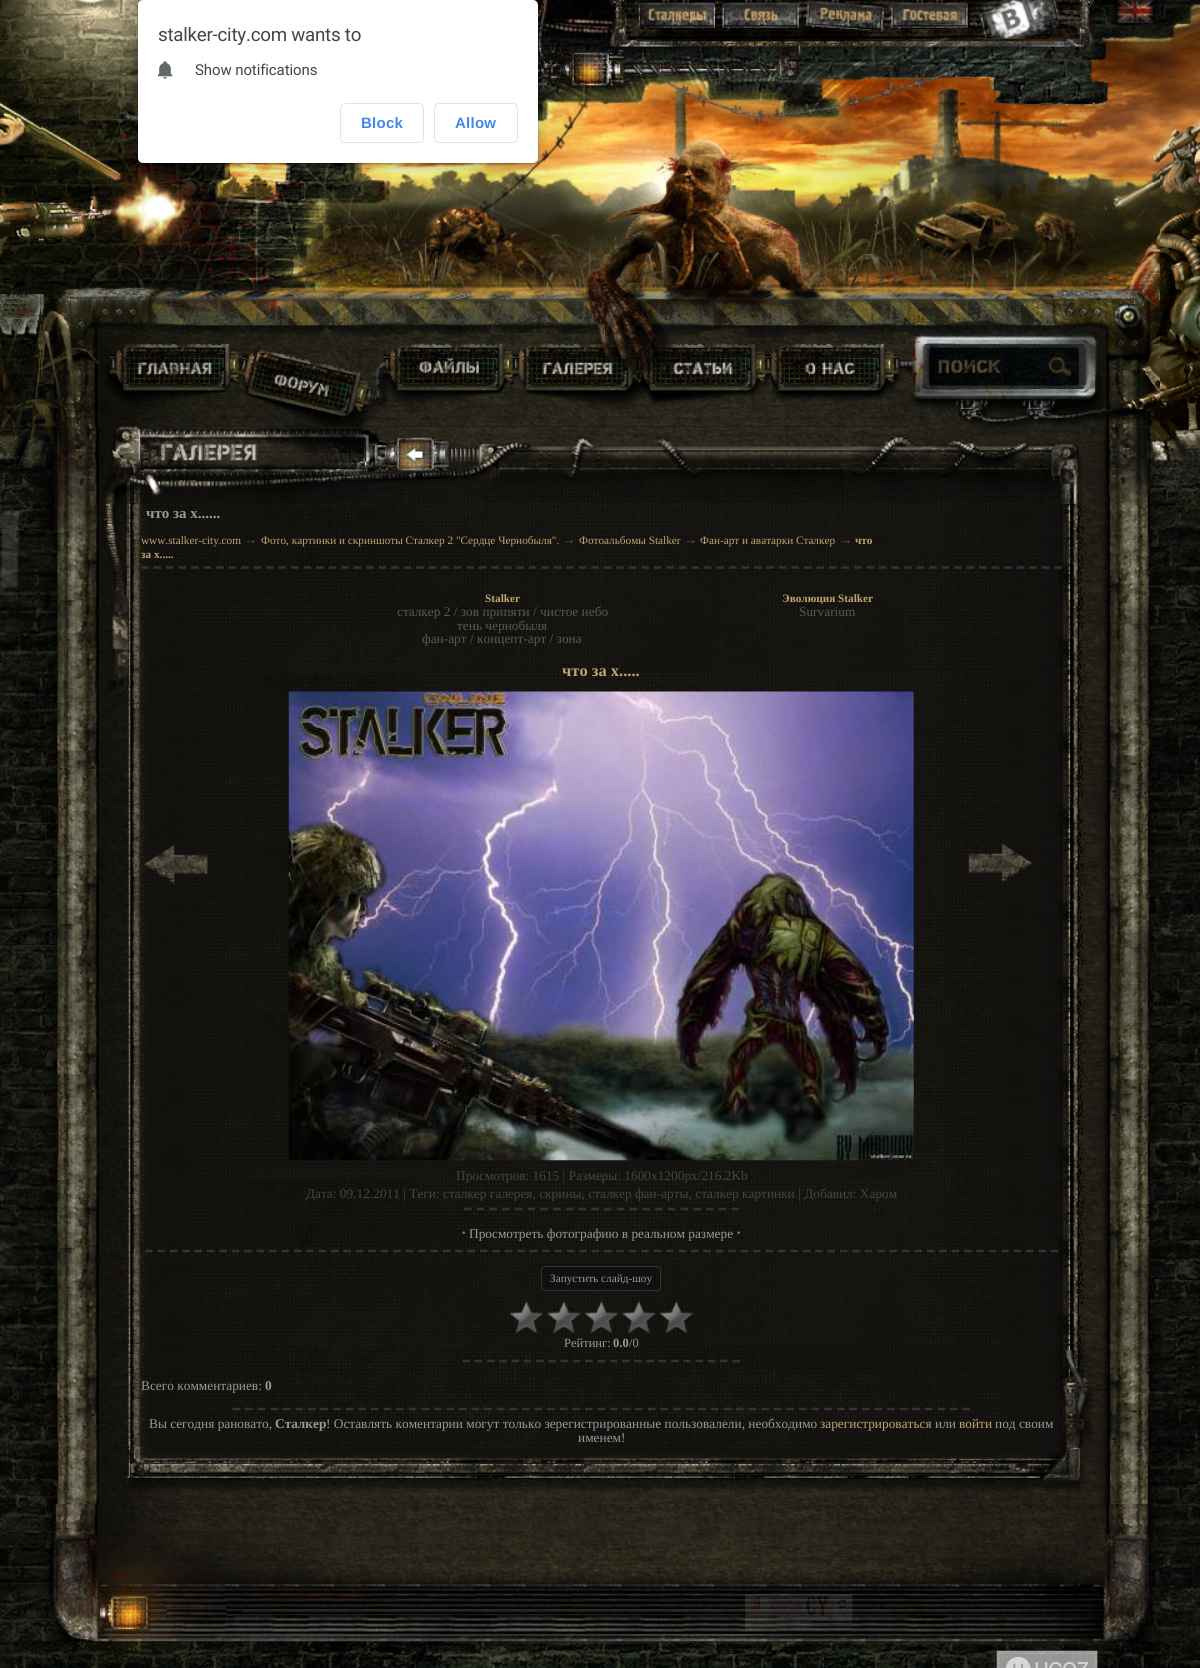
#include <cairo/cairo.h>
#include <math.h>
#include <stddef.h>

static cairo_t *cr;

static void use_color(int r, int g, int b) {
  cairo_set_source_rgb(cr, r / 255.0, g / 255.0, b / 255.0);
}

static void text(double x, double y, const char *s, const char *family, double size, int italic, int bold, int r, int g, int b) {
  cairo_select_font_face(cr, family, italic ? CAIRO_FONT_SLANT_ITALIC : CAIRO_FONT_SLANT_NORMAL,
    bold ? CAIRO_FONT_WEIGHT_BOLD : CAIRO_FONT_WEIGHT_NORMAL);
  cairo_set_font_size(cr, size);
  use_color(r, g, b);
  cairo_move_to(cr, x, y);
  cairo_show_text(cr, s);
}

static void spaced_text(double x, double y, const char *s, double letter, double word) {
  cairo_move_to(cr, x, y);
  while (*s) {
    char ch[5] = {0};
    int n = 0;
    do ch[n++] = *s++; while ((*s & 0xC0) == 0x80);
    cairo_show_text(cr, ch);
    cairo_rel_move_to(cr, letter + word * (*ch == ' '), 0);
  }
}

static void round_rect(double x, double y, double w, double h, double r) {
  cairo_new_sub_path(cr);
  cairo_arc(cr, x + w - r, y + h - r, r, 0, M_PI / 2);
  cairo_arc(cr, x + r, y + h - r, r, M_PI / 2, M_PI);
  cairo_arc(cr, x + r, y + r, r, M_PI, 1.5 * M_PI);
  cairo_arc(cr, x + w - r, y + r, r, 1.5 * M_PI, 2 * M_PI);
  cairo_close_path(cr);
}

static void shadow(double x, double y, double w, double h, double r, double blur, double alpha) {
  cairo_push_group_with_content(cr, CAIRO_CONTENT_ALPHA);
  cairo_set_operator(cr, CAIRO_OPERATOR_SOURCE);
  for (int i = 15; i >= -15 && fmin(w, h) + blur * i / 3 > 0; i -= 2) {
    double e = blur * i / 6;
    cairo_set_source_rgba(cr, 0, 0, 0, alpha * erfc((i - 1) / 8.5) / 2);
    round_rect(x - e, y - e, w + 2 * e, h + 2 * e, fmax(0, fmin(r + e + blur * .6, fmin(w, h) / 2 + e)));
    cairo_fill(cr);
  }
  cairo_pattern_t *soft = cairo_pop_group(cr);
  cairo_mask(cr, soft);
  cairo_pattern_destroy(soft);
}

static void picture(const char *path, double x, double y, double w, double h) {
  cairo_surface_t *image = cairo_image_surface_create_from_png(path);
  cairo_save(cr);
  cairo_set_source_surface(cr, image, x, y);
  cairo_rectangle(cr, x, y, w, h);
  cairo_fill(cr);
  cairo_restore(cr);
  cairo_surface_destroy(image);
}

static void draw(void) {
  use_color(255, 255, 255);
  cairo_paint(cr);
  picture("img_01.png", 0, 530, 1200, 1112);
  picture("img_03.png", 0, 0, 1200, 531);
  picture("img_04.png", 41, 0, 1119, 74);
  picture("img_11.png", 41, 285, 1119, 142);
  picture("img_10.png", 41, 74, 1119, 212);
  use_color(0, 0, 0);
  shadow(135, 0, 405, 168, 8, 4, 0.15);
  shadow(138, 1, 400, 163, 5, 1, 0.3);
  use_color(255, 255, 255);
  round_rect(138, 0, 400, 163, 5);
  cairo_fill(cr);
  picture("img_02.png", 158, 61, 15, 18);
  round_rect(340.5, 103.5, 83, 39, 4.5);
  use_color(228, 228, 228);
  cairo_set_line_width(cr, 1);
  cairo_stroke(cr);
  round_rect(434.5, 103.5, 83, 39, 4.5);
  cairo_stroke(cr);
  picture("img_05.png", 638, 0, 77, 29);
  picture("img_06.png", 715, 0, 85, 29);
  picture("img_07.png", 800, 0, 84, 33);
  picture("img_08.png", 883, 0, 86, 29);
  picture("img_09.png", 969, 0, 91, 39);
  picture("img_12.png", 57, 426, 1093, 1078);
  picture("img_13.png", 57, 426, 97, 113);
  picture("img_14.png", 1106, 426, 43, 80);
  picture("img_15.png", 0, 511, 20, 77);
  picture("img_17.png", 105, 426, 978, 78);
  picture("img_16.png", 910, 392, 189, 44);
  picture("img_18.png", 161, 444, 96, 17);
  picture("img_19.png", 127, 504, 959, 940);
  picture("img_20.png", 102, 471, 27, 220);
  cairo_new_path(cr);
  cairo_move_to(cr, 144, 529.5);
  cairo_line_to(cr, 1060, 529.5);
  use_color(21, 21, 21);
  cairo_set_line_width(cr, 1.2);
  cairo_set_dash(cr, (double[]){3.75, 2.5}, 2, 0);
  cairo_stroke(cr);
  cairo_new_path(cr);
  cairo_move_to(cr, 141, 567.5);
  cairo_line_to(cr, 1062.5, 567.5);
  use_color(51, 51, 51);
  cairo_set_line_width(cr, 2.5);
  cairo_set_dash(cr, (double[]){7.5, 5.01}, 2, 0);
  cairo_stroke(cr);
  picture("img_21.png", 143, 844, 65, 39);
  picture("img_22.png", 968, 844, 65, 39);
  picture("img_23.png", 288, 691, 626, 470);
  cairo_new_path(cr);
  cairo_move_to(cr, 464, 1209);
  cairo_line_to(cr, 739, 1209);
  cairo_set_dash(cr, (double[]){7.5, 5.24}, 2, 0);
  cairo_stroke(cr);
  cairo_new_path(cr);
  cairo_move_to(cr, 145, 1251);
  cairo_line_to(cr, 1059, 1251);
  cairo_set_dash(cr, (double[]){7.5, 4.91}, 2, 0);
  cairo_stroke(cr);
  picture("img_24.png", 541, 1267, 120, 24);
  round_rect(541.5, 1266.5, 119, 24, 3.5);
  cairo_set_line_width(cr, 1);
  cairo_set_dash(cr, NULL, 0, 0);
  cairo_stroke(cr);
  picture("img_25.png", 509, 1301, 185, 32);
  picture("img_26.png", 127, 1344, 966, 155);
  cairo_new_path(cr);
  cairo_move_to(cr, 462.5, 1361);
  cairo_line_to(cr, 740, 1361);
  cairo_set_line_width(cr, 2.5);
  cairo_set_dash(cr, (double[]){7.5, 4.77}, 2, 0);
  cairo_stroke(cr);
  cairo_new_path(cr);
  cairo_move_to(cr, 232.5, 1409);
  cairo_line_to(cr, 970, 1409);
  cairo_set_dash(cr, (double[]){7.5, 5.09}, 2, 0);
  cairo_stroke(cr);
  picture("img_27.png", 47, 1504, 1108, 138);
  picture("img_29.png", 0, 1641, 1200, 27);
  picture("img_28.png", 996, 1650, 102, 18);
  picture("img_30.png", 744, 1594, 110, 37);
  cairo_select_font_face(cr, "Roboto", CAIRO_FONT_SLANT_NORMAL, CAIRO_FONT_WEIGHT_NORMAL);
  cairo_set_font_size(cr, 18.75);
  use_color(68, 68, 68);
  spaced_text(158, 41, "stalker-city.com wants to", -0.25, 0);
  cairo_set_font_size(cr, 15);
  spaced_text(195, 75, "Show notifications", -0.1, 0);
  cairo_select_font_face(cr, "Liberation Sans", CAIRO_FONT_SLANT_NORMAL, CAIRO_FONT_WEIGHT_BOLD);
  use_color(64, 137, 232);
  spaced_text(361, 128, "Block", 0.25, 0);
  spaced_text(455, 128, "Allow", 0.25, 0);
  text(146, 518, "что за х......", "Liberation Serif", 15, 0, 1, 153, 153, 153);
  text(141, 544, "www.stalker-city.com", "Liberation Serif", 11.25, 0, 0, 191, 165, 109);
  text(244, 544, "→", "Liberation Serif", 13.35, 0, 0, 88, 88, 88);
  text(261, 544, "Фото, картинки и скриншоты Сталкер 2 \"Сердце Чернобыля\".", "Liberation Serif", 11.25, 0, 0, 191, 165, 109);
  text(562, 544, "→", "Liberation Serif", 13.35, 0, 0, 88, 88, 88);
  text(579, 544, "Фотоальбомы Stalker", "Liberation Serif", 11.25, 0, 0, 191, 165, 109);
  text(684, 544, "→", "Liberation Serif", 13.35, 0, 0, 88, 88, 88);
  text(700, 544, "Фан-арт и аватарки Сталкер", "Liberation Serif", 11.25, 0, 0, 191, 165, 109);
  text(839, 544, "→", "Liberation Serif", 13.35, 0, 0, 88, 88, 88);
  text(855, 544, "что", "Liberation Serif", 11.25, 0, 1, 191, 165, 109);
  text(141, 558, "за х.....", "Liberation Serif", 11.25, 0, 1, 191, 165, 109);
  text(485, 602, "Stalker", "Liberation Serif", 11.25, 0, 1, 191, 165, 109);
  text(397, 616, "сталкер 2 / зов припяти / чистое небо", "Liberation Serif", 13.35, 0, 0, 88, 88, 88);
  text(457, 630, "тень чернобыля", "Liberation Serif", 13.35, 0, 0, 88, 88, 88);
  text(422, 643, "фан-арт / концепт-арт / зона", "Liberation Serif", 13.35, 0, 0, 88, 88, 88);
  text(782, 602, "Эволюция Stalker", "Liberation Serif", 11.25, 0, 1, 191, 165, 109);
  text(799, 616, "Survarium", "Liberation Serif", 13.35, 0, 0, 88, 88, 88);
  text(562, 676, "что за х.....", "Liberation Serif", 16.5, 0, 1, 191, 165, 109);
  text(456, 1180, "Просмотров: 1615 | Размеры: 1600x1200px/216.2Kb", "Liberation Serif", 13.35, 0, 0, 68, 68, 68);
  text(306, 1198, "Дата: 09.12.2011 | Теги: сталкер галерея, скрины, сталкер фан-арты, сталкер картинки | Добавил: Харом", "Liberation Serif", 13.35, 0, 0, 68, 68, 68);
  text(461, 1238, "·", "Liberation Serif", 16, 0, 1, 119, 119, 119);
  text(469, 1238, "Просмотреть фотографию в реальном размере", "Liberation Serif", 13.35, 0, 0, 153, 153, 153);
  text(736, 1238, "·", "Liberation Serif", 16, 0, 1, 119, 119, 119);
  text(550, 1282, "Запустить слайд-шоу", "Liberation Serif", 11.25, 0, 0, 153, 153, 153);
  text(564, 1347, "Рейтинг:", "Liberation Serif", 12.5, 0, 0, 153, 153, 153);
  text(613, 1347, "0.0", "Liberation Serif", 12.5, 0, 1, 153, 153, 153);
  text(629, 1347, "/0", "Liberation Serif", 12.5, 0, 0, 153, 153, 153);
  text(141, 1390, "Всего комментариев:", "Liberation Serif", 13.35, 0, 0, 153, 153, 153);
  text(265, 1390, "0", "Liberation Serif", 13.35, 0, 1, 153, 153, 153);
  text(149, 1428, "Вы сегодня рановато,", "Liberation Serif", 13.35, 0, 0, 153, 153, 153);
  text(275, 1428, "Сталкер", "Liberation Serif", 13.35, 0, 1, 153, 153, 153);
  text(326, 1428, "! Оставлять коментарии могут только зерегистрированные пользовалели, необходимо", "Liberation Serif", 13.35, 0, 0, 153, 153, 153);
  text(820, 1428, "зарегистрироваться", "Liberation Serif", 13.35, 0, 0, 191, 165, 109);
  text(935, 1428, "или", "Liberation Serif", 13.35, 0, 0, 153, 153, 153);
  text(959, 1428, "войти", "Liberation Serif", 13.35, 0, 0, 191, 165, 109);
  text(995, 1428, "под своим", "Liberation Serif", 13.35, 0, 0, 153, 153, 153);
  text(578, 1442, "именем!", "Liberation Serif", 13.35, 0, 0, 153, 153, 153);
}

int main(void) {
  cairo_surface_t *surface = cairo_image_surface_create(CAIRO_FORMAT_RGB24, 1200, 1668);
  cr = cairo_create(surface);
  cairo_font_options_t *options = cairo_font_options_create();
  cairo_font_options_set_hint_metrics(options, CAIRO_HINT_METRICS_OFF);
  cairo_font_options_set_hint_style(options, CAIRO_HINT_STYLE_NONE);
  cairo_set_font_options(cr, options);
  cairo_set_miter_limit(cr, 4);
  draw();
  cairo_surface_write_to_png(surface, "out.png");
  cairo_font_options_destroy(options);
  cairo_destroy(cr);
  cairo_surface_destroy(surface);
  return 0;
}
